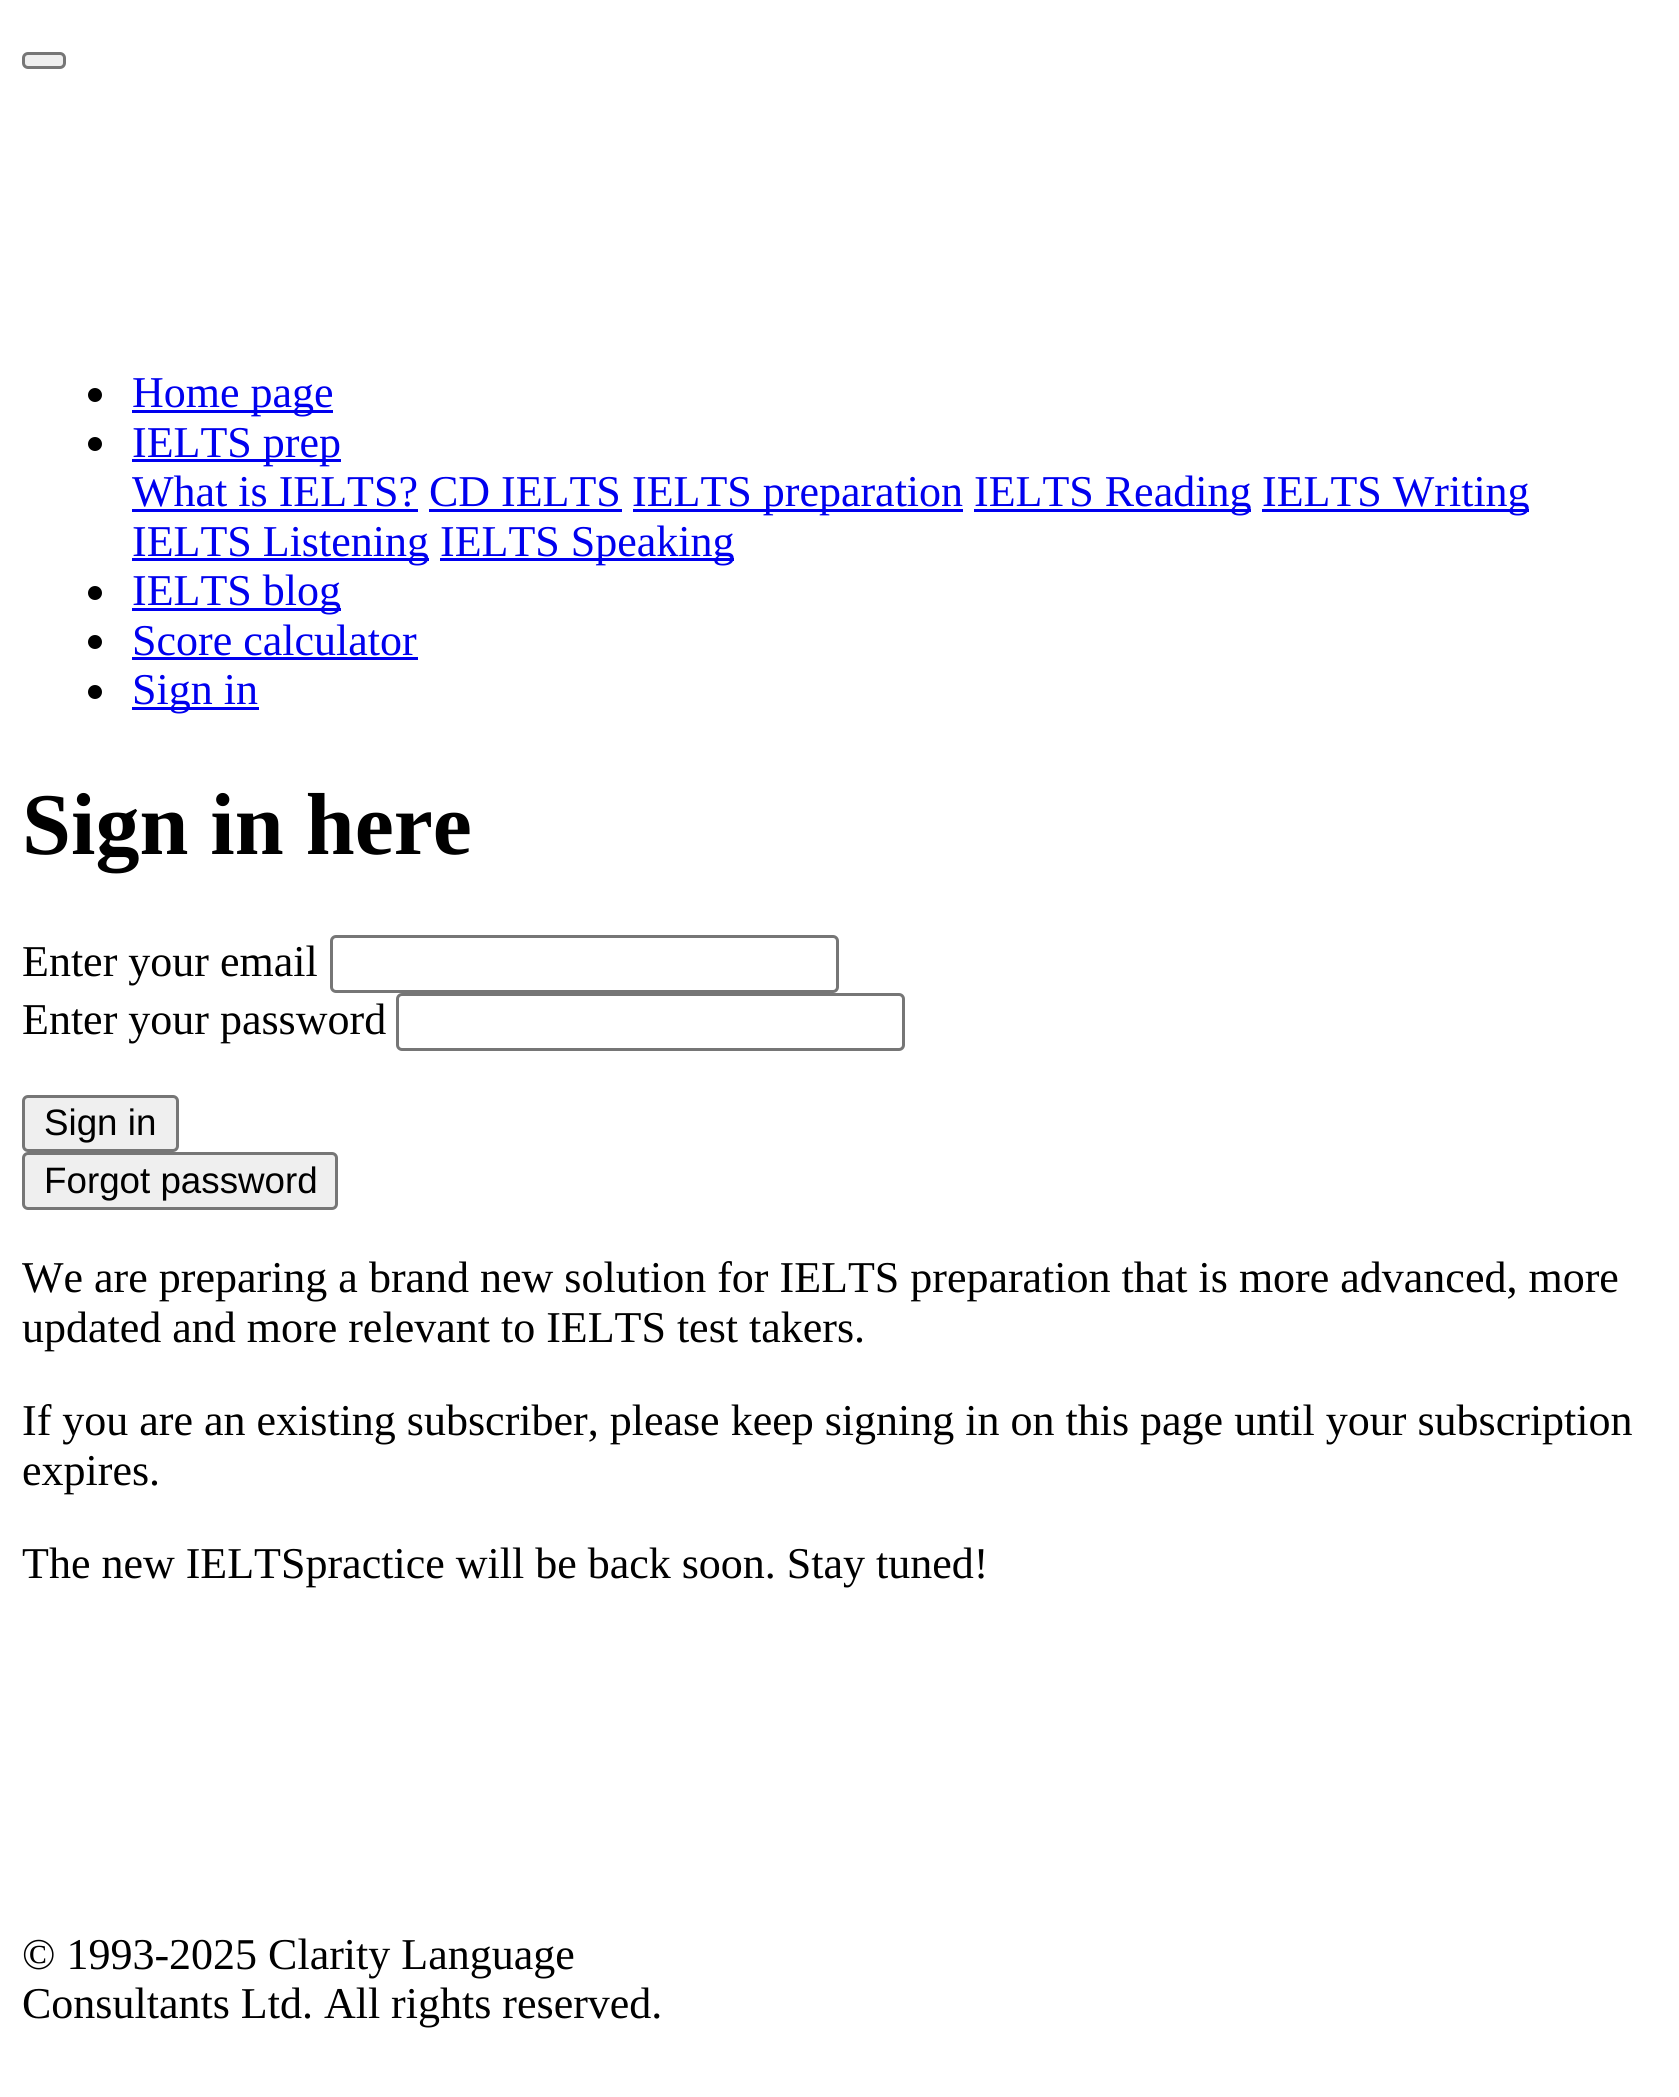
#include <cairo/cairo.h>
#include <math.h>
#include <stddef.h>

static cairo_t *cr;

static void use_color(int r, int g, int b) {
  cairo_set_source_rgb(cr, r / 255.0, g / 255.0, b / 255.0);
}

static void text(double x, double y, const char *s, const char *family, double size, int italic, int bold, int r, int g, int b) {
  cairo_select_font_face(cr, family, italic ? CAIRO_FONT_SLANT_ITALIC : CAIRO_FONT_SLANT_NORMAL,
    bold ? CAIRO_FONT_WEIGHT_BOLD : CAIRO_FONT_WEIGHT_NORMAL);
  cairo_set_font_size(cr, size);
  use_color(r, g, b);
  cairo_move_to(cr, x, y);
  cairo_show_text(cr, s);
}

static void box(double x, double y, double w, double h, int r, int g, int b) {
  use_color(r, g, b);
  cairo_rectangle(cr, x, y, w, h);
  cairo_fill(cr);
}

static void round_rect(double x, double y, double w, double h, double r) {
  cairo_new_sub_path(cr);
  cairo_arc(cr, x + w - r, y + h - r, r, 0, M_PI / 2);
  cairo_arc(cr, x + r, y + h - r, r, M_PI / 2, M_PI);
  cairo_arc(cr, x + r, y + r, r, M_PI, 1.5 * M_PI);
  cairo_arc(cr, x + w - r, y + r, r, 1.5 * M_PI, 2 * M_PI);
  cairo_close_path(cr);
}

static void draw(void) {
  use_color(255, 255, 255);
  cairo_paint(cr);
  use_color(239, 239, 239);
  round_rect(23.5, 53.5, 41, 14, 4.5);
  cairo_fill_preserve(cr);
  use_color(118, 118, 118);
  cairo_set_line_width(cr, 3);
  cairo_stroke(cr);
  use_color(0, 0, 0);
  cairo_arc(cr, 95, 395, 7, 0, 2 * M_PI);
  cairo_fill(cr);
  box(132, 410, 201, 3, 0, 0, 238);
  use_color(0, 0, 0);
  cairo_arc(cr, 95, 444, 7, 0, 2 * M_PI);
  cairo_fill(cr);
  box(132, 459, 209, 3, 0, 0, 238);
  box(132, 509, 286, 3, 0, 0, 238);
  box(633, 509, 330, 3, 0, 0, 238);
  box(974, 509, 277, 3, 0, 0, 238);
  box(1262, 509, 267, 3, 0, 0, 238);
  box(429, 509, 193, 3, 0, 0, 238);
  box(132, 558, 297, 3, 0, 0, 238);
  box(440, 558, 294, 3, 0, 0, 238);
  use_color(0, 0, 0);
  cairo_arc(cr, 95, 593, 7, 0, 2 * M_PI);
  cairo_fill(cr);
  box(132, 608, 209, 3, 0, 0, 238);
  use_color(0, 0, 0);
  cairo_arc(cr, 95, 642, 7, 0, 2 * M_PI);
  cairo_fill(cr);
  box(132, 657, 286, 3, 0, 0, 238);
  use_color(0, 0, 0);
  cairo_arc(cr, 95, 692, 7, 0, 2 * M_PI);
  cairo_fill(cr);
  box(132, 707, 127, 3, 0, 0, 238);
  round_rect(331.5, 936.5, 506, 55, 4.5);
  use_color(118, 118, 118);
  cairo_stroke(cr);
  round_rect(397.5, 994.5, 506, 55, 4.5);
  cairo_stroke(cr);
  use_color(239, 239, 239);
  round_rect(23.5, 1096.5, 154, 54, 4.5);
  cairo_fill_preserve(cr);
  use_color(118, 118, 118);
  cairo_stroke(cr);
  use_color(239, 239, 239);
  round_rect(23.5, 1153.5, 313, 55, 4.5);
  cairo_fill_preserve(cr);
  use_color(118, 118, 118);
  cairo_stroke(cr);
  text(132, 407, "Home page", "Liberation Serif", 44, 0, 0, 0, 0, 238);
  text(132, 457, "IELTS prep", "Liberation Serif", 44, 0, 0, 0, 0, 238);
  text(132, 506, "What is IELTS? CD IELTS", "Liberation Serif", 44, 0, 0, 0, 0, 238);
  text(632, 506, "IELTS preparation", "Liberation Serif", 44, 0, 0, 0, 0, 238);
  text(974, 506, "IELTS Reading", "Liberation Serif", 44, 0, 0, 0, 0, 238);
  text(1262, 506, "IELTS Writing", "Liberation Serif", 44, 0, 0, 0, 0, 238);
  text(132, 556, "IELTS Listening", "Liberation Serif", 44, 0, 0, 0, 0, 238);
  text(440, 556, "IELTS Speaking", "Liberation Serif", 44, 0, 0, 0, 0, 238);
  text(132, 605, "IELTS blog", "Liberation Serif", 44, 0, 0, 0, 0, 238);
  text(132, 655, "Score calculator", "Liberation Serif", 44, 0, 0, 0, 0, 238);
  text(132, 704, "Sign in", "Liberation Serif", 44, 0, 0, 0, 0, 238);
  text(22, 854, "Sign in here", "Liberation Serif", 88, 0, 1, 0, 0, 0);
  text(22, 976, "Enter your email", "Liberation Serif", 44, 0, 0, 0, 0, 0);
  text(22, 1034, "Enter your password", "Liberation Serif", 44, 0, 0, 0, 0, 0);
  text(44, 1135, "Sign in", "Liberation Sans", 36.75, 0, 0, 0, 0, 0);
  text(44, 1193, "Forgot password", "Liberation Sans", 36.75, 0, 0, 0, 0, 0);
  text(22, 1292, "We are preparing a brand new solution for IELTS preparation that is more advanced, more", "Liberation Serif", 44, 0, 0, 0, 0, 0);
  text(22, 1342, "updated and more relevant to IELTS test takers.", "Liberation Serif", 44, 0, 0, 0, 0, 0);
  text(22, 1435, "If you are an existing subscriber, please keep signing in on this page until your subscription", "Liberation Serif", 44, 0, 0, 0, 0, 0);
  text(22, 1485, "expires.", "Liberation Serif", 44, 0, 0, 0, 0, 0);
  text(22, 1578, "The new IELTSpractice will be back soon. Stay tuned!", "Liberation Serif", 44, 0, 0, 0, 0, 0);
  text(22, 1969, "© 1993-2025 Clarity Language", "Liberation Serif", 44, 0, 0, 0, 0, 0);
  text(22, 2018, "Consultants Ltd. All rights reserved.", "Liberation Serif", 44, 0, 0, 0, 0, 0);
}

int main(void) {
  cairo_surface_t *surface = cairo_image_surface_create(CAIRO_FORMAT_RGB24, 1679, 2097);
  cr = cairo_create(surface);
  cairo_font_options_t *options = cairo_font_options_create();
  cairo_font_options_set_hint_metrics(options, CAIRO_HINT_METRICS_OFF);
  cairo_font_options_set_hint_style(options, CAIRO_HINT_STYLE_NONE);
  cairo_set_font_options(cr, options);
  cairo_set_miter_limit(cr, 4);
  draw();
  cairo_surface_write_to_png(surface, "out.png");
  cairo_font_options_destroy(options);
  cairo_destroy(cr);
  cairo_surface_destroy(surface);
  return 0;
}
